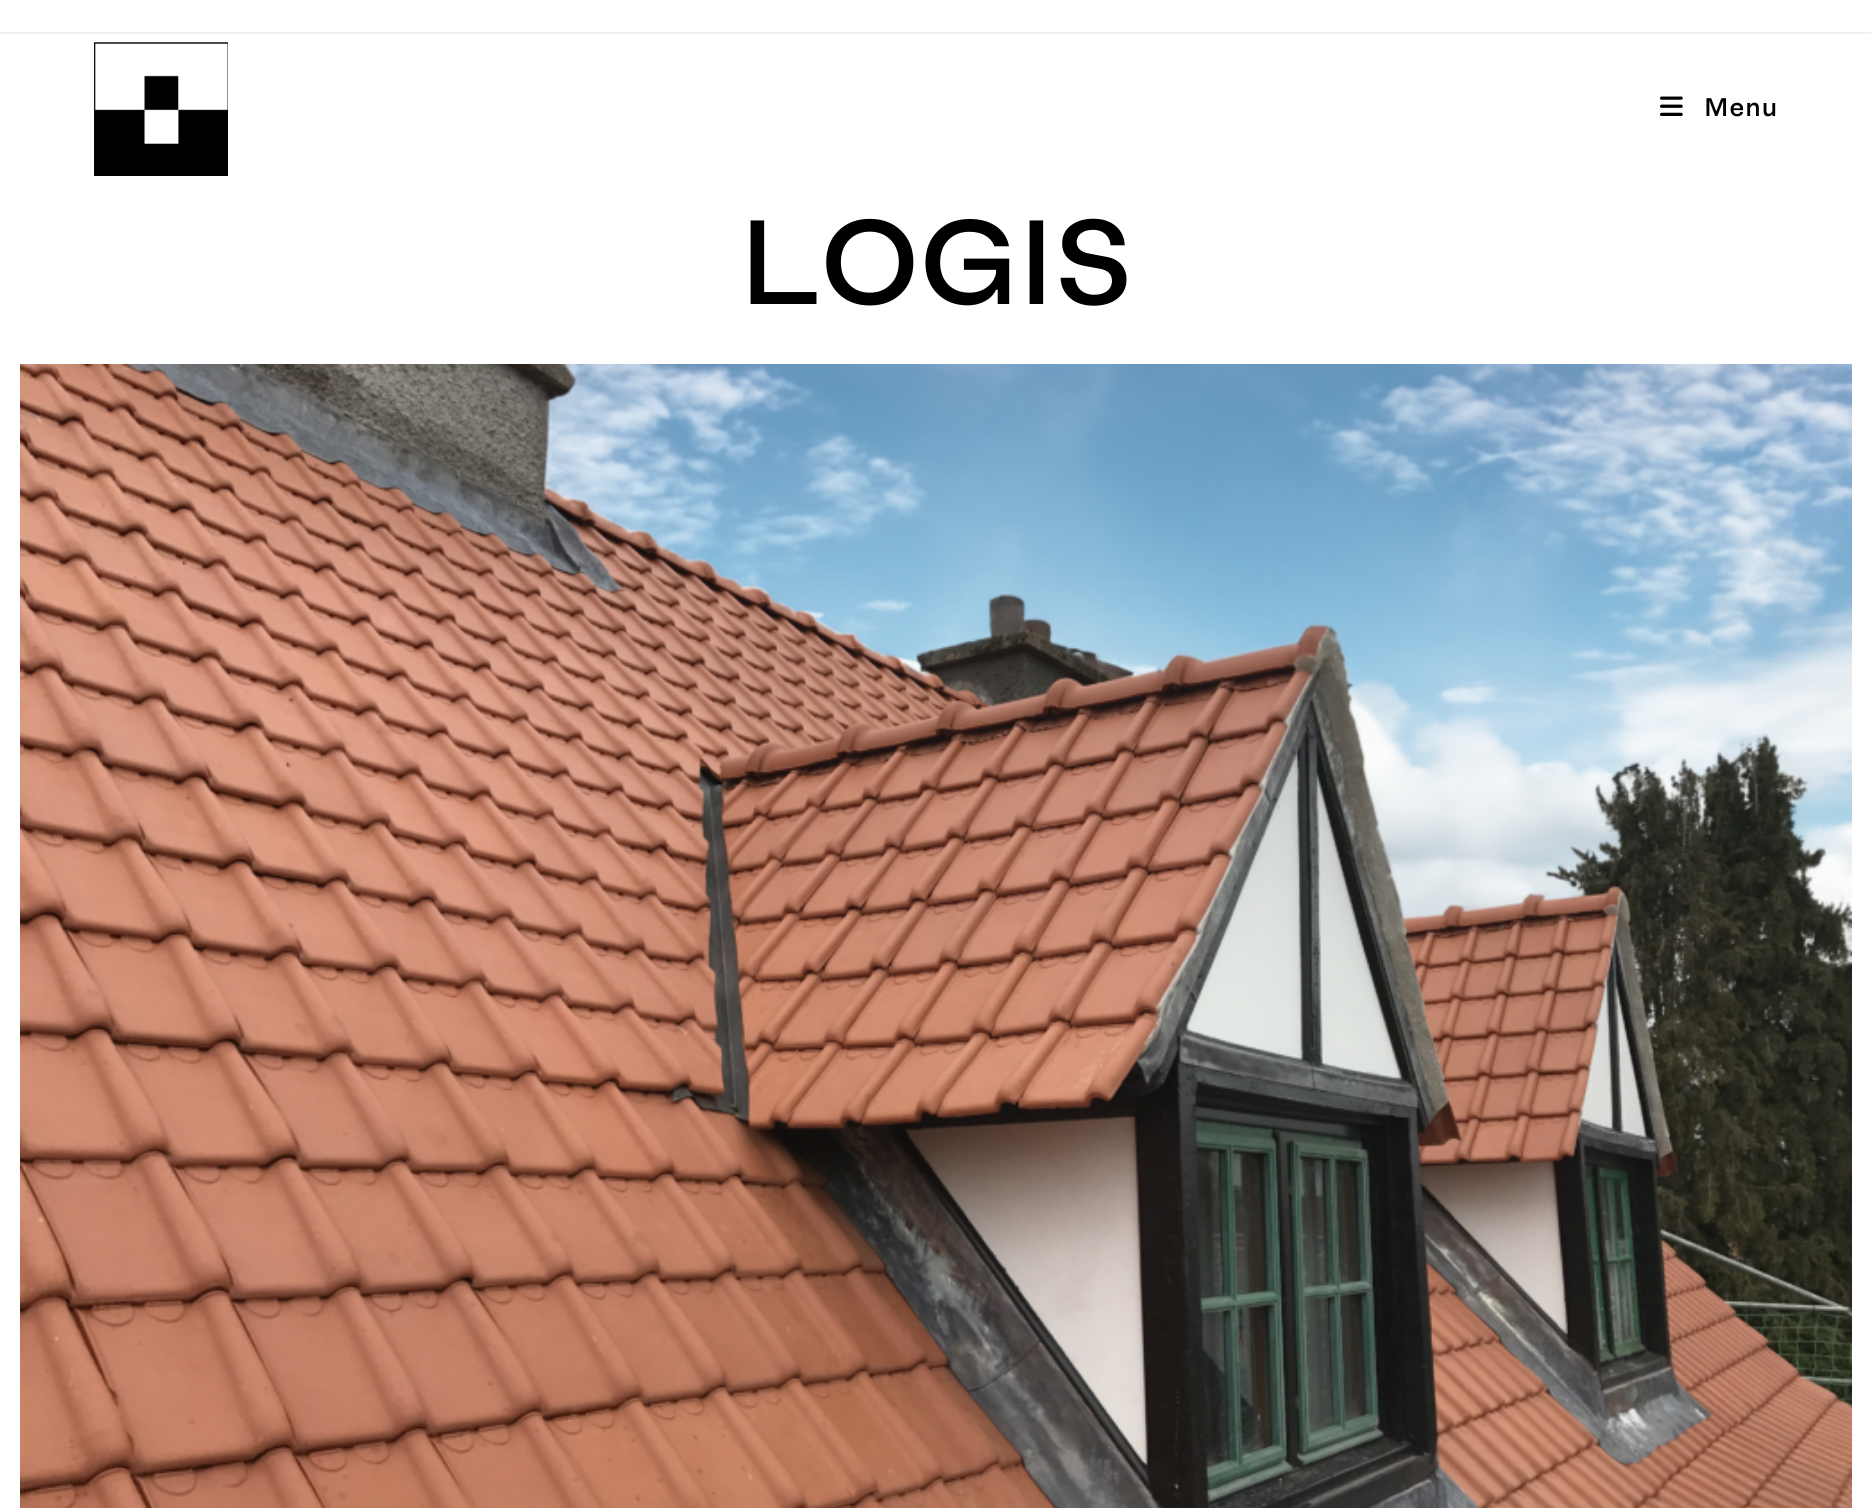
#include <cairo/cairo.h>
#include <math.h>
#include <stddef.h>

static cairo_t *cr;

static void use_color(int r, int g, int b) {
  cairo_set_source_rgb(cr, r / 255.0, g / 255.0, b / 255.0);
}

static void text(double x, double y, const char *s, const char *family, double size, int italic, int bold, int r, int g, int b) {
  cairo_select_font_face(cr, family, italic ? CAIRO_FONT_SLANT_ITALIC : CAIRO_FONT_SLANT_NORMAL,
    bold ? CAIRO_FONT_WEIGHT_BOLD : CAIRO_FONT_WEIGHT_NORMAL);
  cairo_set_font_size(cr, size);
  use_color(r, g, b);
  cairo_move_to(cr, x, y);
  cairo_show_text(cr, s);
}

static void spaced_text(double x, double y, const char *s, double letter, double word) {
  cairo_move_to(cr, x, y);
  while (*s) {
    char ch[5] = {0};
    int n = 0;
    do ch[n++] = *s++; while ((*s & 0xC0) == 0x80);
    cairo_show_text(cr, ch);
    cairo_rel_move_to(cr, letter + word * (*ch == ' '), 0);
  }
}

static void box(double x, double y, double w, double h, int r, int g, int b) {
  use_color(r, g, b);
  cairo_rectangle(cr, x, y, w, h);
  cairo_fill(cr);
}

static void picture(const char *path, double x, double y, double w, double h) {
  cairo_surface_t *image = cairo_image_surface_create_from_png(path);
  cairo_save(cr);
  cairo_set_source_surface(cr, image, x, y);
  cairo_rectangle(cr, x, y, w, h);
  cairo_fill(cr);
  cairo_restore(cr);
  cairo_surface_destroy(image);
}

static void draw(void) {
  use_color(255, 255, 255);
  cairo_paint(cr);
  box(0, 32, 1871, 2, 241, 241, 241);
  picture("img_01.png", 94, 42, 134, 134);
  picture("img_02.png", 1660, 96, 23, 20);
  picture("img_03.png", 20, 364, 1832, 1144);
  cairo_select_font_face(cr, "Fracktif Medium", CAIRO_FONT_SLANT_NORMAL, CAIRO_FONT_WEIGHT_NORMAL);
  cairo_set_font_size(cr, 26);
  use_color(0, 0, 0);
  spaced_text(1704, 116, "Menu", 1, 0);
  text(739, 304, "LOGIS", "Fracktif Medium", 122, 0, 0, 0, 0, 0);
}

int main(void) {
  cairo_surface_t *surface = cairo_image_surface_create(CAIRO_FORMAT_RGB24, 1871, 1508);
  cr = cairo_create(surface);
  cairo_font_options_t *options = cairo_font_options_create();
  cairo_font_options_set_hint_metrics(options, CAIRO_HINT_METRICS_OFF);
  cairo_font_options_set_hint_style(options, CAIRO_HINT_STYLE_NONE);
  cairo_set_font_options(cr, options);
  cairo_set_miter_limit(cr, 4);
  draw();
  cairo_surface_write_to_png(surface, "out.png");
  cairo_font_options_destroy(options);
  cairo_destroy(cr);
  cairo_surface_destroy(surface);
  return 0;
}
